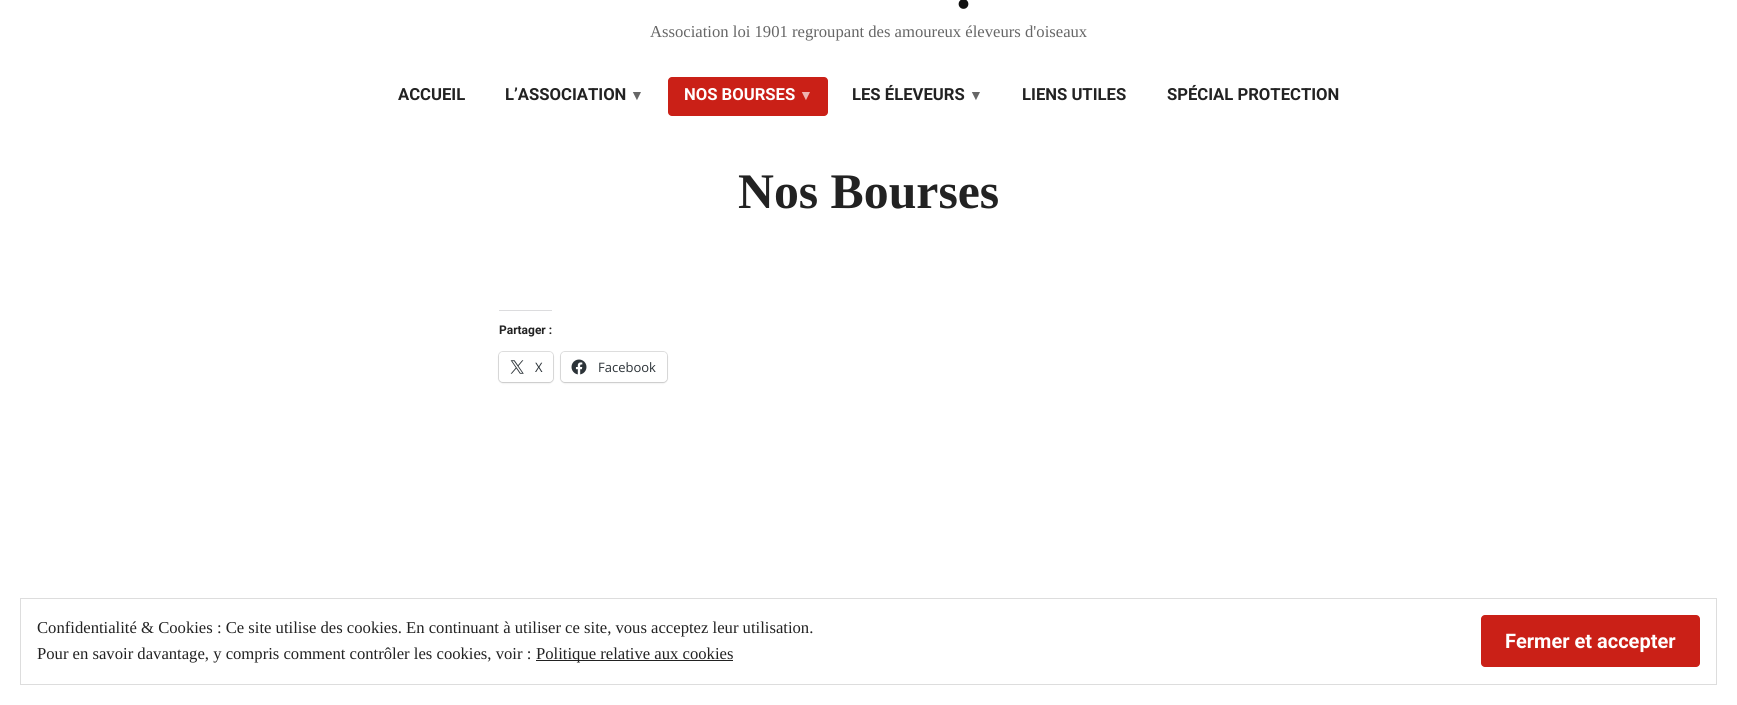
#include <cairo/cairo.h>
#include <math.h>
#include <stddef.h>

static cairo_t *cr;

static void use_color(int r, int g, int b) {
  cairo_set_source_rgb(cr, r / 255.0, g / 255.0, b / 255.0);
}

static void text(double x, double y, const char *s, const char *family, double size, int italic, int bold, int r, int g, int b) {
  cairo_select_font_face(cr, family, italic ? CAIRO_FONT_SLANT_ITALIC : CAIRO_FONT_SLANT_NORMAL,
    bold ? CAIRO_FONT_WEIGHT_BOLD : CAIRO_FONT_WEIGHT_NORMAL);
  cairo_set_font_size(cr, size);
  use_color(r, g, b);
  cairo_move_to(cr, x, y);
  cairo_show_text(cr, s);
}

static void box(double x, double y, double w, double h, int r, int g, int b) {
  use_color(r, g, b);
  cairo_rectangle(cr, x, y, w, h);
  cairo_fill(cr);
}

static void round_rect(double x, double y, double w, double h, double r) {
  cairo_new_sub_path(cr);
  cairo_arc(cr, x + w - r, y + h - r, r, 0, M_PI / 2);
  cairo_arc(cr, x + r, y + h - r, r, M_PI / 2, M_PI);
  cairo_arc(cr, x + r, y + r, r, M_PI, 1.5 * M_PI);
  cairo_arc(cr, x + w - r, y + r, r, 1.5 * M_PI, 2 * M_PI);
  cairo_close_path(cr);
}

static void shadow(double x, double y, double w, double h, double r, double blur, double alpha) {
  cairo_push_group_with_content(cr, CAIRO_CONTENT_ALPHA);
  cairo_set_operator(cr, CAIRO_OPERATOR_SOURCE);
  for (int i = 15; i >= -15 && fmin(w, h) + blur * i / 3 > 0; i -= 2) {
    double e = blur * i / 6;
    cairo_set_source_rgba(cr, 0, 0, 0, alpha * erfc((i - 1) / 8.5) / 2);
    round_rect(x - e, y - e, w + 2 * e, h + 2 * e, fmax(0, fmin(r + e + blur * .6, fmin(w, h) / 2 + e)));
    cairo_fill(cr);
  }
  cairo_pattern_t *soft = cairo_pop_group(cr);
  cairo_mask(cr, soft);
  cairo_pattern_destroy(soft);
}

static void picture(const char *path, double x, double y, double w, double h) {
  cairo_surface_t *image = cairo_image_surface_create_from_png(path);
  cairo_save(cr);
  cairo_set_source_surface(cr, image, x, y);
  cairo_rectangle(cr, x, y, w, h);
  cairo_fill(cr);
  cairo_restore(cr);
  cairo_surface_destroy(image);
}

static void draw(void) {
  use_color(255, 255, 255);
  cairo_paint(cr);
  use_color(202, 32, 23);
  round_rect(668, 77, 160, 39, 4);
  cairo_fill(cr);
  box(499, 310, 53, 1, 220, 220, 222);
  round_rect(498.5, 351.5, 55, 31, 4.5);
  use_color(224, 224, 224);
  cairo_set_line_width(cr, 1);
  cairo_stroke(cr);
  use_color(0, 0, 0);
  shadow(499, 353, 54, 30, 4, 1, 0.12);
  use_color(255, 255, 255);
  round_rect(499, 352, 54, 30, 4);
  cairo_fill(cr);
  picture("img_01.png", 510, 360, 14, 14);
  round_rect(560.5, 351.5, 107, 31, 4.5);
  use_color(224, 224, 224);
  cairo_stroke(cr);
  use_color(0, 0, 0);
  shadow(561, 353, 106, 30, 4, 1, 0.12);
  use_color(255, 255, 255);
  round_rect(561, 352, 106, 30, 4);
  cairo_fill(cr);
  picture("img_02.png", 571, 359, 16, 16);
  cairo_rectangle(cr, 20.5, 598.5, 1696, 86);
  use_color(221, 221, 221);
  cairo_stroke(cr);
  use_color(202, 32, 23);
  round_rect(1481, 615, 219, 52, 4);
  cairo_fill(cr);
  box(536, 660, 197, 1, 34, 34, 34);
  text(956, 8, ".", "Liberation Serif", 60, 0, 1, 17, 17, 17);
  text(650, 37, "Association loi 1901 regroupant des amoureux éleveurs d'oiseaux", "Liberation Serif", 16.65, 0, 0, 102, 102, 102);
  text(398, 100, "ACCUEIL", "Roboto", 16.65, 0, 1, 34, 34, 34);
  text(505, 100, "L’ASSOCIATION", "Roboto", 16.65, 0, 1, 34, 34, 34);
  text(630, 100, "▼", "Liberation Sans", 14, 0, 1, 102, 102, 102);
  text(684, 100, "NOS BOURSES", "Roboto", 16.65, 0, 1, 255, 255, 255);
  text(799, 100, "▼", "Liberation Sans", 14, 0, 1, 238, 181, 178);
  text(852, 100, "LES ÉLEVEURS", "Roboto", 16.65, 0, 1, 34, 34, 34);
  text(969, 100, "▼", "Liberation Sans", 14, 0, 1, 102, 102, 102);
  text(1022, 100, "LIENS UTILES", "Roboto", 16.65, 0, 1, 34, 34, 34);
  text(1167, 100, "SPÉCIAL PROTECTION", "Roboto", 16.65, 0, 1, 34, 34, 34);
  text(738, 208, "Nos Bourses", "Liberation Serif", 49.75, 0, 1, 34, 34, 34);
  text(499, 334, "Partager :", "Roboto", 12, 0, 1, 34, 34, 34);
  text(535, 372, "X", "Open Sans", 13, 0, 0, 44, 51, 56);
  text(598, 372, "Facebook", "Open Sans", 13, 0, 0, 44, 51, 56);
  text(37, 633, "Confidentialité & Cookies : Ce site utilise des cookies. En continuant à utiliser ce site, vous acceptez leur utilisation.", "Liberation Serif", 16.65, 0, 0, 34, 34, 34);
  text(1505, 648, "Fermer et accepter", "Roboto", 20, 0, 1, 255, 255, 255);
  text(37, 659, "Pour en savoir davantage, y compris comment contrôler les cookies, voir :", "Liberation Serif", 16.65, 0, 0, 34, 34, 34);
  text(536, 659, "Politique relative aux cookies", "Liberation Serif", 16.65, 0, 0, 34, 34, 34);
}

int main(void) {
  cairo_surface_t *surface = cairo_image_surface_create(CAIRO_FORMAT_RGB24, 1737, 705);
  cr = cairo_create(surface);
  cairo_font_options_t *options = cairo_font_options_create();
  cairo_font_options_set_hint_metrics(options, CAIRO_HINT_METRICS_OFF);
  cairo_font_options_set_hint_style(options, CAIRO_HINT_STYLE_NONE);
  cairo_set_font_options(cr, options);
  cairo_set_miter_limit(cr, 4);
  draw();
  cairo_surface_write_to_png(surface, "out.png");
  cairo_font_options_destroy(options);
  cairo_destroy(cr);
  cairo_surface_destroy(surface);
  return 0;
}
